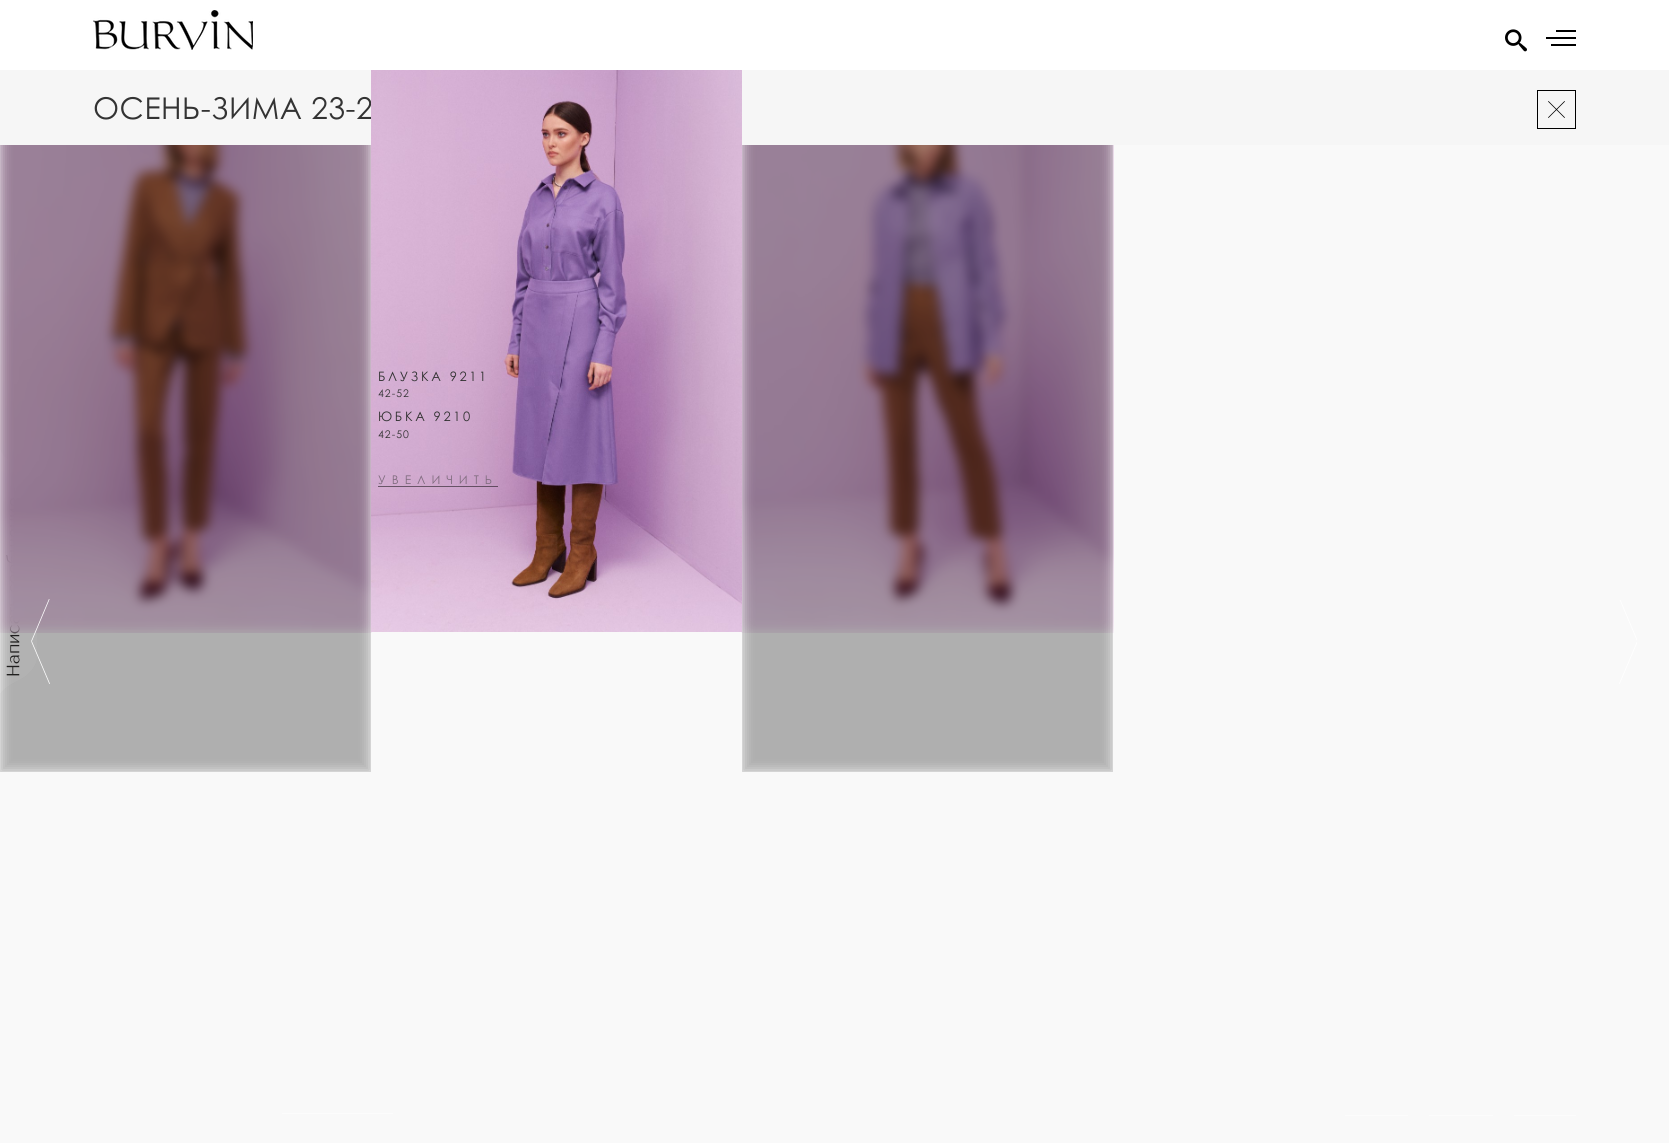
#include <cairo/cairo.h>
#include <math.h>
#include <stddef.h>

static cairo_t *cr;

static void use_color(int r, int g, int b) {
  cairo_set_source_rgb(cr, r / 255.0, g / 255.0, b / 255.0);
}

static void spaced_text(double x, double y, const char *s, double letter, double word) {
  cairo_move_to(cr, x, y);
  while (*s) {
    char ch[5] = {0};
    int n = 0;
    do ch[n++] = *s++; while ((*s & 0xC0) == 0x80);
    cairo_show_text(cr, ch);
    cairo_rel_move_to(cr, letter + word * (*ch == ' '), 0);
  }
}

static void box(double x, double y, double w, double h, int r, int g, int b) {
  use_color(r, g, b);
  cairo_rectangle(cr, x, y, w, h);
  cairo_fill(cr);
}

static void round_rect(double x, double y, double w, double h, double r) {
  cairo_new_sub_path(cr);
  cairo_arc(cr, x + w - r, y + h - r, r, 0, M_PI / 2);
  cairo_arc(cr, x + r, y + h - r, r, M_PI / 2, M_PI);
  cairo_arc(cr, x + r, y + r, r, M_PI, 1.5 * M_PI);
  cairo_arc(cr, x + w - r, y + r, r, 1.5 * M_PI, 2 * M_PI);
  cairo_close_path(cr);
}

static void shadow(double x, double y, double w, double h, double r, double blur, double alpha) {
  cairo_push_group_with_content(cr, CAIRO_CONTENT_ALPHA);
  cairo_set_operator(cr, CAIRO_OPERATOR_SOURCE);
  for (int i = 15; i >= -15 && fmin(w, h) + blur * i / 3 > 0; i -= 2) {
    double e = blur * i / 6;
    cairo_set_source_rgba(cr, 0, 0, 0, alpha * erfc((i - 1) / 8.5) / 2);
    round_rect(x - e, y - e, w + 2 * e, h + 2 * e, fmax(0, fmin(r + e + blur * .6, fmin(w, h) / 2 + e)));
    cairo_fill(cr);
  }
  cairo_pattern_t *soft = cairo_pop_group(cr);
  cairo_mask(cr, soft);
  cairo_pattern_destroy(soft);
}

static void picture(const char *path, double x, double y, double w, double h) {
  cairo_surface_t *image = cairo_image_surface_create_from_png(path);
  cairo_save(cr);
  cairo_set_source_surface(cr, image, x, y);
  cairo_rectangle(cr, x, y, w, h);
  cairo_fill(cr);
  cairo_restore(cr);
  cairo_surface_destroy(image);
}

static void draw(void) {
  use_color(249, 249, 249);
  cairo_paint(cr);
  picture("img_10.png", 0, 450, 38, 243);
  picture("img_05.png", 0, 145, 372, 488);
  cairo_save(cr);
  cairo_rectangle(cr, 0, 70, 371, 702);
  cairo_clip(cr);
  use_color(0, 0, 0);
  shadow(0, 70, 371, 702, 0, 6, 0.3);
  cairo_restore(cr);
  picture("img_07.png", 741, 145, 373, 488);
  cairo_save(cr);
  cairo_rectangle(cr, 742, 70, 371, 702);
  cairo_clip(cr);
  use_color(0, 0, 0);
  shadow(742, 70, 371, 702, 0, 6, 0.3);
  cairo_restore(cr);
  box(0, 0, 1669, 70, 255, 255, 255);
  picture("img_01.png", 93, 10, 160, 40);
  picture("img_02.png", 1505, 29, 22, 23);
  picture("img_03.png", 1546, 30, 30, 16);
  box(0, 70, 1669, 75, 246, 246, 246);
  picture("img_04.png", 1537, 90, 39, 39);
  picture("img_08.png", 31, 599, 19, 85);
  picture("img_09.png", 1619, 600, 18, 84);
  box(282, 1113, 111, 1, 252, 252, 252);
  box(1345, 1115, 63, 1, 252, 252, 252);
  box(1429, 1115, 64, 1, 252, 252, 252);
  box(1514, 1115, 62, 1, 252, 252, 252);
  cairo_select_font_face(cr, "Century Gothic", CAIRO_FONT_SLANT_NORMAL, CAIRO_FONT_WEIGHT_NORMAL);
  cairo_set_font_size(cr, 30);
  use_color(51, 51, 51);
  spaced_text(93, 119, "ОСЕНЬ-ЗИМА 23-2", 0.5, 0);
  picture("img_06.png", 371, 70, 371, 562);
  cairo_set_font_size(cr, 13);
  spaced_text(378, 381, "БЛУЗКА 9211", 2.6, 0);
  cairo_set_font_size(cr, 10.5);
  spaced_text(378, 397, "42-52", 1, 0);
  cairo_set_font_size(cr, 13);
  spaced_text(378, 421, "ЮБКА 9210", 2.6, 0);
  cairo_set_font_size(cr, 10.5);
  spaced_text(378, 438, "42-50", 1, 0);
  cairo_set_source_rgba(cr, 0, 0, 0, 0.5);
  cairo_rectangle(cr, 378, 486, 120, 1);
  cairo_fill(cr);
  cairo_set_font_size(cr, 12);
  use_color(129, 109, 128);
  spaced_text(378, 484, "УВЕЛИЧИТЬ", 6, 0);
}

int main(void) {
  cairo_surface_t *surface = cairo_image_surface_create(CAIRO_FORMAT_RGB24, 1669, 1143);
  cr = cairo_create(surface);
  cairo_font_options_t *options = cairo_font_options_create();
  cairo_font_options_set_hint_metrics(options, CAIRO_HINT_METRICS_OFF);
  cairo_font_options_set_hint_style(options, CAIRO_HINT_STYLE_NONE);
  cairo_set_font_options(cr, options);
  cairo_set_miter_limit(cr, 4);
  draw();
  cairo_surface_write_to_png(surface, "out.png");
  cairo_font_options_destroy(options);
  cairo_destroy(cr);
  cairo_surface_destroy(surface);
  return 0;
}
